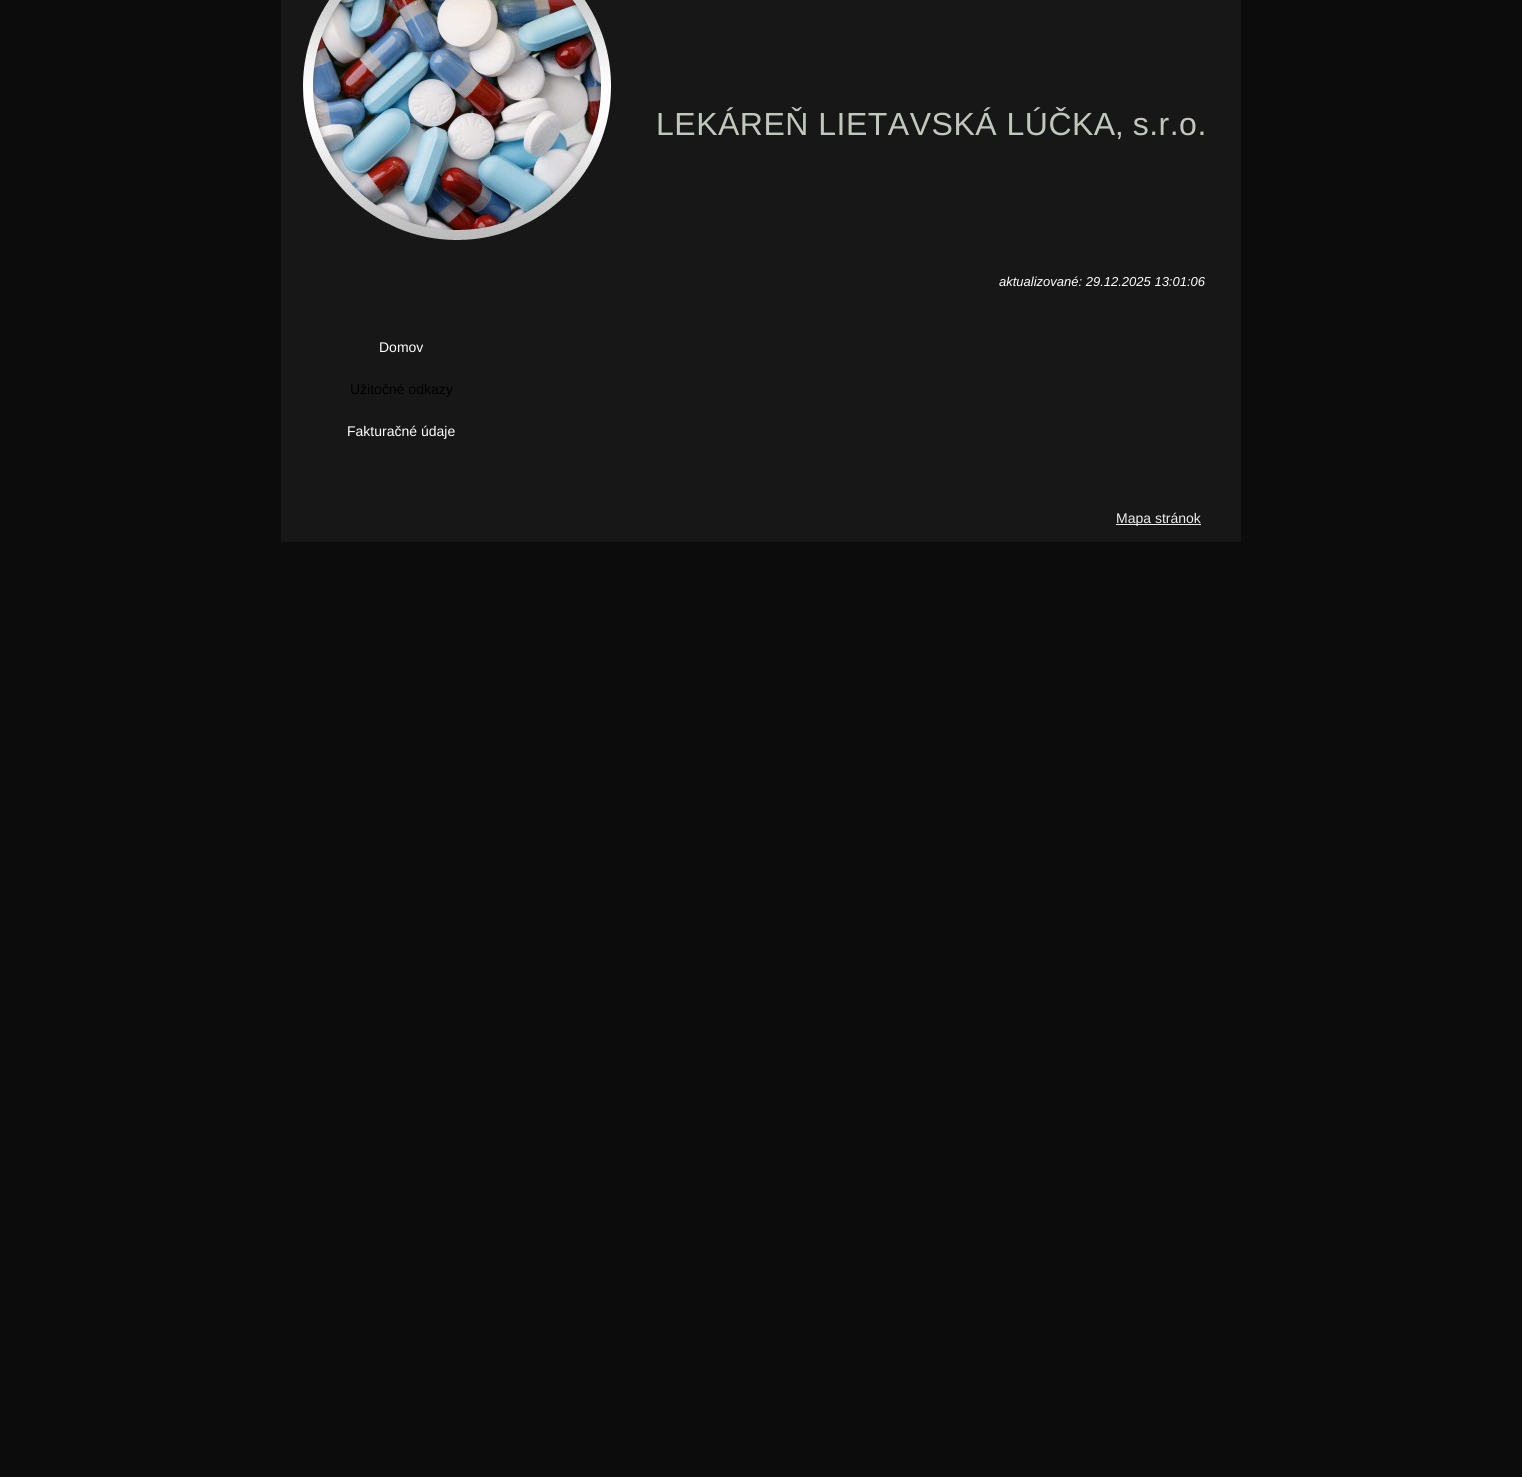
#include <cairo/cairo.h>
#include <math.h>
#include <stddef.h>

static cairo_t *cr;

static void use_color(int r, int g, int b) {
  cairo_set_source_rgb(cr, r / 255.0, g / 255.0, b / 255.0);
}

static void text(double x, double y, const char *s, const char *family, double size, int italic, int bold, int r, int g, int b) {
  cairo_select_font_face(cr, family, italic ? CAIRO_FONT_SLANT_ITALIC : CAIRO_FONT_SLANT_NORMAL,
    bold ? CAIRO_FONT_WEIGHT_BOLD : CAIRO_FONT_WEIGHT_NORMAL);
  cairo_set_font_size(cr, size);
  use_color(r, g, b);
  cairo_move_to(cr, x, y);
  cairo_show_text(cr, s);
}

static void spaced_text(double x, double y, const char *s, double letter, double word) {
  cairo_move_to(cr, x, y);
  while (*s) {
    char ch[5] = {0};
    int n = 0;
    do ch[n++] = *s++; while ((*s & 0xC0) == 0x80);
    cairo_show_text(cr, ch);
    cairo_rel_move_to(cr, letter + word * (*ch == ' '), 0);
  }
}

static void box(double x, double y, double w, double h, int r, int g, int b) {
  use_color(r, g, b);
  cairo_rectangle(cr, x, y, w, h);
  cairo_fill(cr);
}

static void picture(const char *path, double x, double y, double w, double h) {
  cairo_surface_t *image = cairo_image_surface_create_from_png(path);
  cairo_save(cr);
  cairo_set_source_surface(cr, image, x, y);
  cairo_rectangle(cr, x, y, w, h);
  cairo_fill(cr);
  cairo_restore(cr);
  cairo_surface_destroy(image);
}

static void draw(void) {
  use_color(12, 12, 12);
  cairo_paint(cr);
  box(281, 0, 960, 542, 23, 23, 23);
  picture("img_01.png", 303, 0, 308, 240);
  box(1116, 524, 85, 1, 238, 238, 238);
  cairo_select_font_face(cr, "Liberation Sans", CAIRO_FONT_SLANT_NORMAL, CAIRO_FONT_WEIGHT_NORMAL);
  cairo_set_font_size(cr, 32);
  use_color(193, 199, 188);
  spaced_text(656, 135, "LEKÁREŇ LIETAVSKÁ LÚČKA‚ s.r.o.", 0.5, 0);
  text(999, 286, "aktualizované: 29.12.2025 13:01:06", "Liberation Sans", 13, 1, 0, 255, 255, 255);
  text(379, 352, "Domov", "Liberation Sans", 14, 0, 0, 255, 255, 255);
  text(350, 394, "Užitočné odkazy", "Liberation Sans", 14, 0, 0, 0, 0, 0);
  text(347, 436, "Fakturačné údaje", "Liberation Sans", 14, 0, 0, 255, 255, 255);
  text(1116, 523, "Mapa stránok", "Liberation Sans", 14, 0, 0, 238, 238, 238);
}

int main(void) {
  cairo_surface_t *surface = cairo_image_surface_create(CAIRO_FORMAT_RGB24, 1522, 1477);
  cr = cairo_create(surface);
  cairo_font_options_t *options = cairo_font_options_create();
  cairo_font_options_set_hint_metrics(options, CAIRO_HINT_METRICS_OFF);
  cairo_font_options_set_hint_style(options, CAIRO_HINT_STYLE_NONE);
  cairo_set_font_options(cr, options);
  cairo_set_miter_limit(cr, 4);
  draw();
  cairo_surface_write_to_png(surface, "out.png");
  cairo_font_options_destroy(options);
  cairo_destroy(cr);
  cairo_surface_destroy(surface);
  return 0;
}
